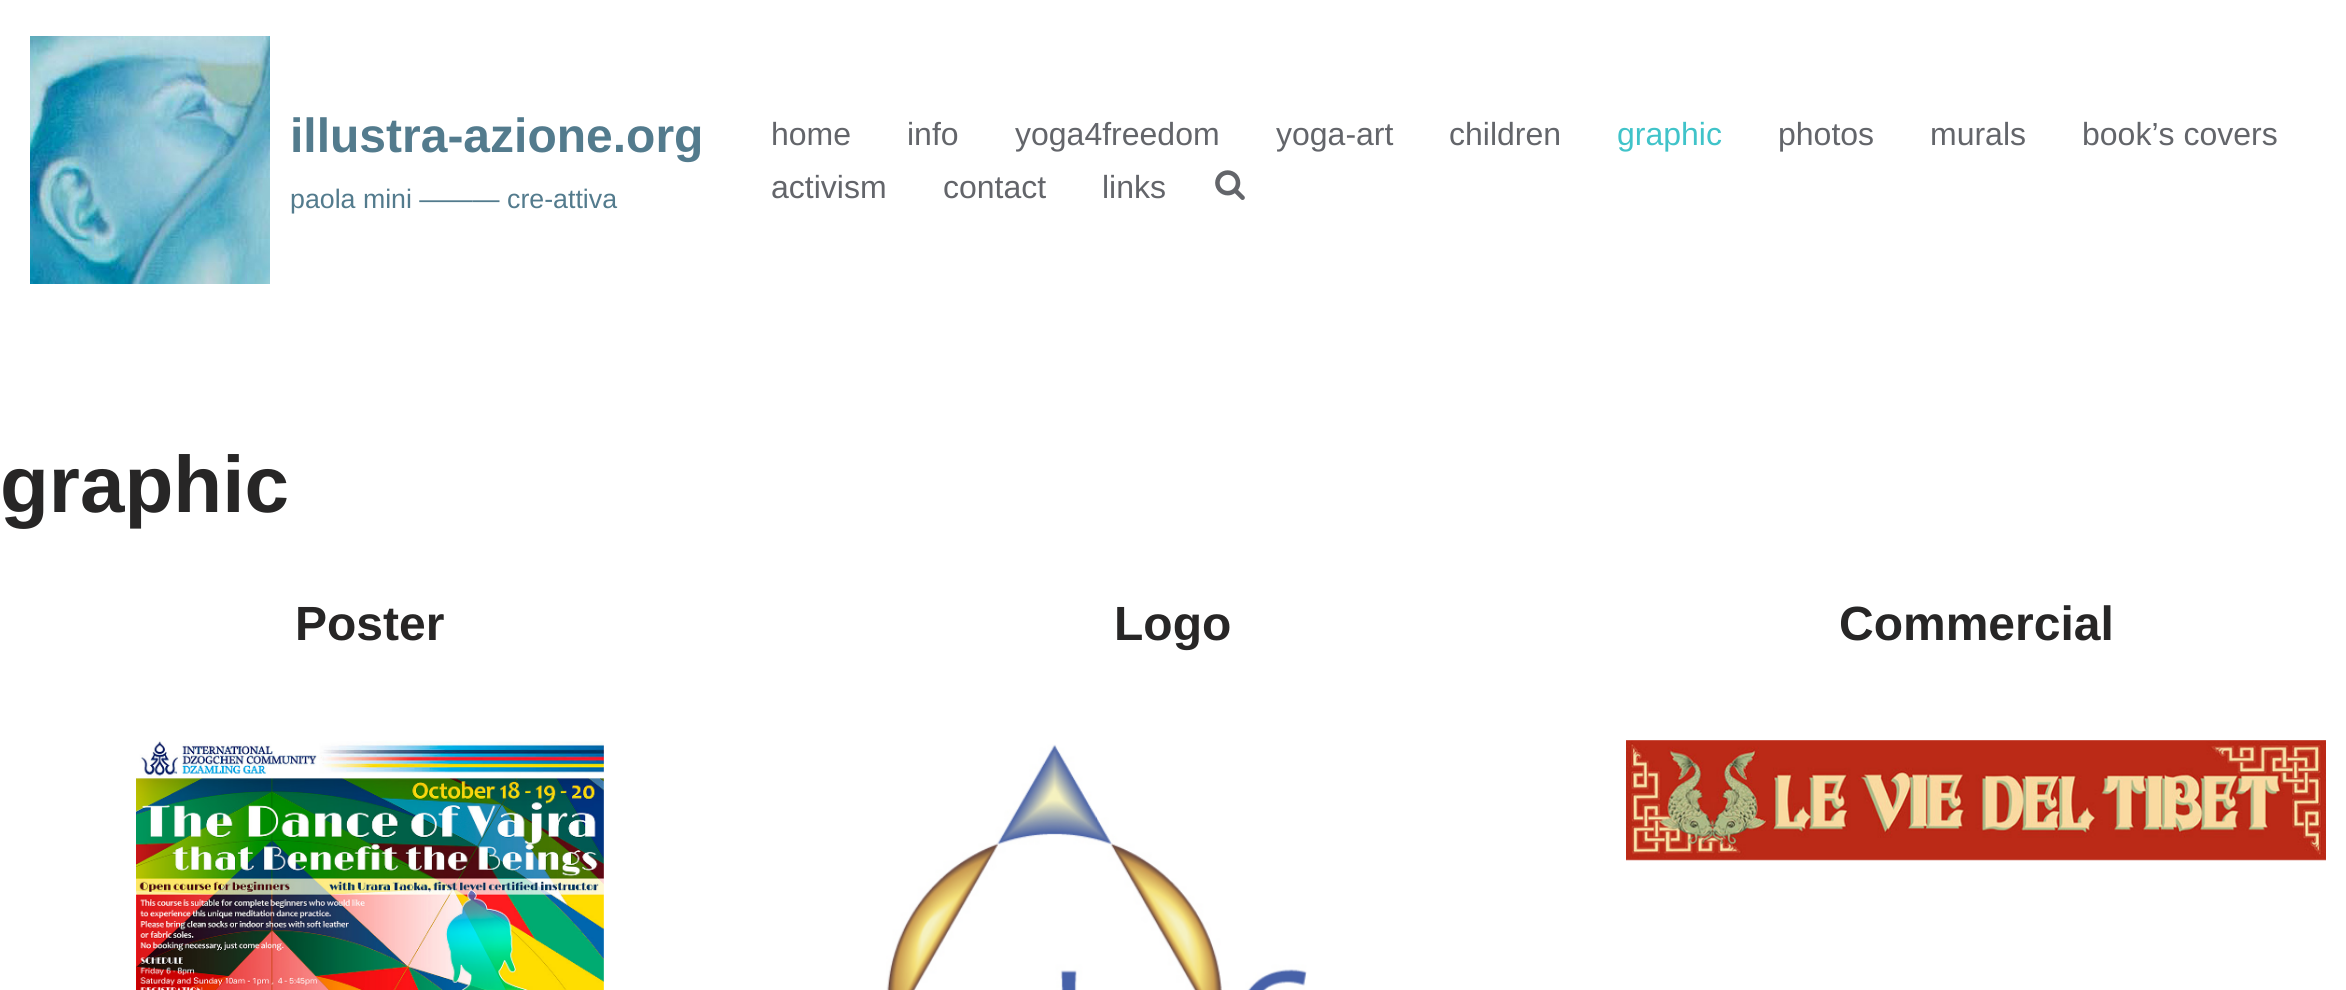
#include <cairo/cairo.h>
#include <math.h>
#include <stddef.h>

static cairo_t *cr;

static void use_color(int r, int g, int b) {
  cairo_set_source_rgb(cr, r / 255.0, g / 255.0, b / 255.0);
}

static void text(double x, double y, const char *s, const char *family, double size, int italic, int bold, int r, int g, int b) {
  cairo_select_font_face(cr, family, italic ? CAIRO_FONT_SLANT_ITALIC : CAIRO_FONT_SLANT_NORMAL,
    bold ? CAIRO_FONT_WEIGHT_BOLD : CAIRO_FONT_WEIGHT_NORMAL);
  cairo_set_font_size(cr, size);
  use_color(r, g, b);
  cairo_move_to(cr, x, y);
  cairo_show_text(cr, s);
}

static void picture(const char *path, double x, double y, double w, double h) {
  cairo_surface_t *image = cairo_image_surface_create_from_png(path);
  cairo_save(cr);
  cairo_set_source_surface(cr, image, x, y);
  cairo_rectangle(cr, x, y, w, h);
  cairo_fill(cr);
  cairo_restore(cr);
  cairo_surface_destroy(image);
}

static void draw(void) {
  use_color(255, 255, 255);
  cairo_paint(cr);
  picture("img_01.png", 30, 36, 240, 248);
  picture("img_02.png", 1215, 170, 30, 30);
  picture("img_03.png", 136, 740, 468, 250);
  picture("img_04.png", 886, 744, 421, 246);
  picture("img_05.png", 1626, 740, 700, 121);
  text(290, 152, "illustra-azione.org", "Liberation Sans", 48, 0, 1, 83, 123, 141);
  text(290, 208, "paola mini ——— cre-attiva", "Liberation Sans", 26.75, 0, 0, 83, 123, 141);
  text(771, 145, "home", "Liberation Sans", 32, 0, 0, 99, 101, 106);
  text(907, 145, "info", "Liberation Sans", 32, 0, 0, 99, 101, 106);
  text(1015, 145, "yoga4freedom", "Liberation Sans", 32, 0, 0, 99, 101, 106);
  text(1276, 145, "yoga-art", "Liberation Sans", 32, 0, 0, 99, 101, 106);
  text(1449, 145, "children", "Liberation Sans", 32, 0, 0, 99, 101, 106);
  text(1617, 145, "graphic", "Liberation Sans", 32, 0, 0, 64, 195, 201);
  text(1778, 145, "photos", "Liberation Sans", 32, 0, 0, 99, 101, 106);
  text(1930, 145, "murals", "Liberation Sans", 32, 0, 0, 99, 101, 106);
  text(2082, 145, "book’s covers", "Liberation Sans", 32, 0, 0, 99, 101, 106);
  text(771, 198, "activism", "Liberation Sans", 32, 0, 0, 99, 101, 106);
  text(943, 198, "contact", "Liberation Sans", 32, 0, 0, 99, 101, 106);
  text(1102, 198, "links", "Liberation Sans", 32, 0, 0, 99, 101, 106);
  text(0, 512, "graphic", "Liberation Sans", 80, 0, 1, 39, 38, 38);
  text(295, 640, "Poster", "Liberation Sans", 48, 0, 1, 39, 38, 38);
  text(1114, 640, "Logo", "Liberation Sans", 48, 0, 1, 39, 38, 38);
  text(1839, 640, "Commercial", "Liberation Sans", 48, 0, 1, 39, 38, 38);
}

int main(void) {
  cairo_surface_t *surface = cairo_image_surface_create(CAIRO_FORMAT_RGB24, 2346, 990);
  cr = cairo_create(surface);
  cairo_font_options_t *options = cairo_font_options_create();
  cairo_font_options_set_hint_metrics(options, CAIRO_HINT_METRICS_OFF);
  cairo_font_options_set_hint_style(options, CAIRO_HINT_STYLE_NONE);
  cairo_set_font_options(cr, options);
  cairo_set_miter_limit(cr, 4);
  draw();
  cairo_surface_write_to_png(surface, "out.png");
  cairo_font_options_destroy(options);
  cairo_destroy(cr);
  cairo_surface_destroy(surface);
  return 0;
}
